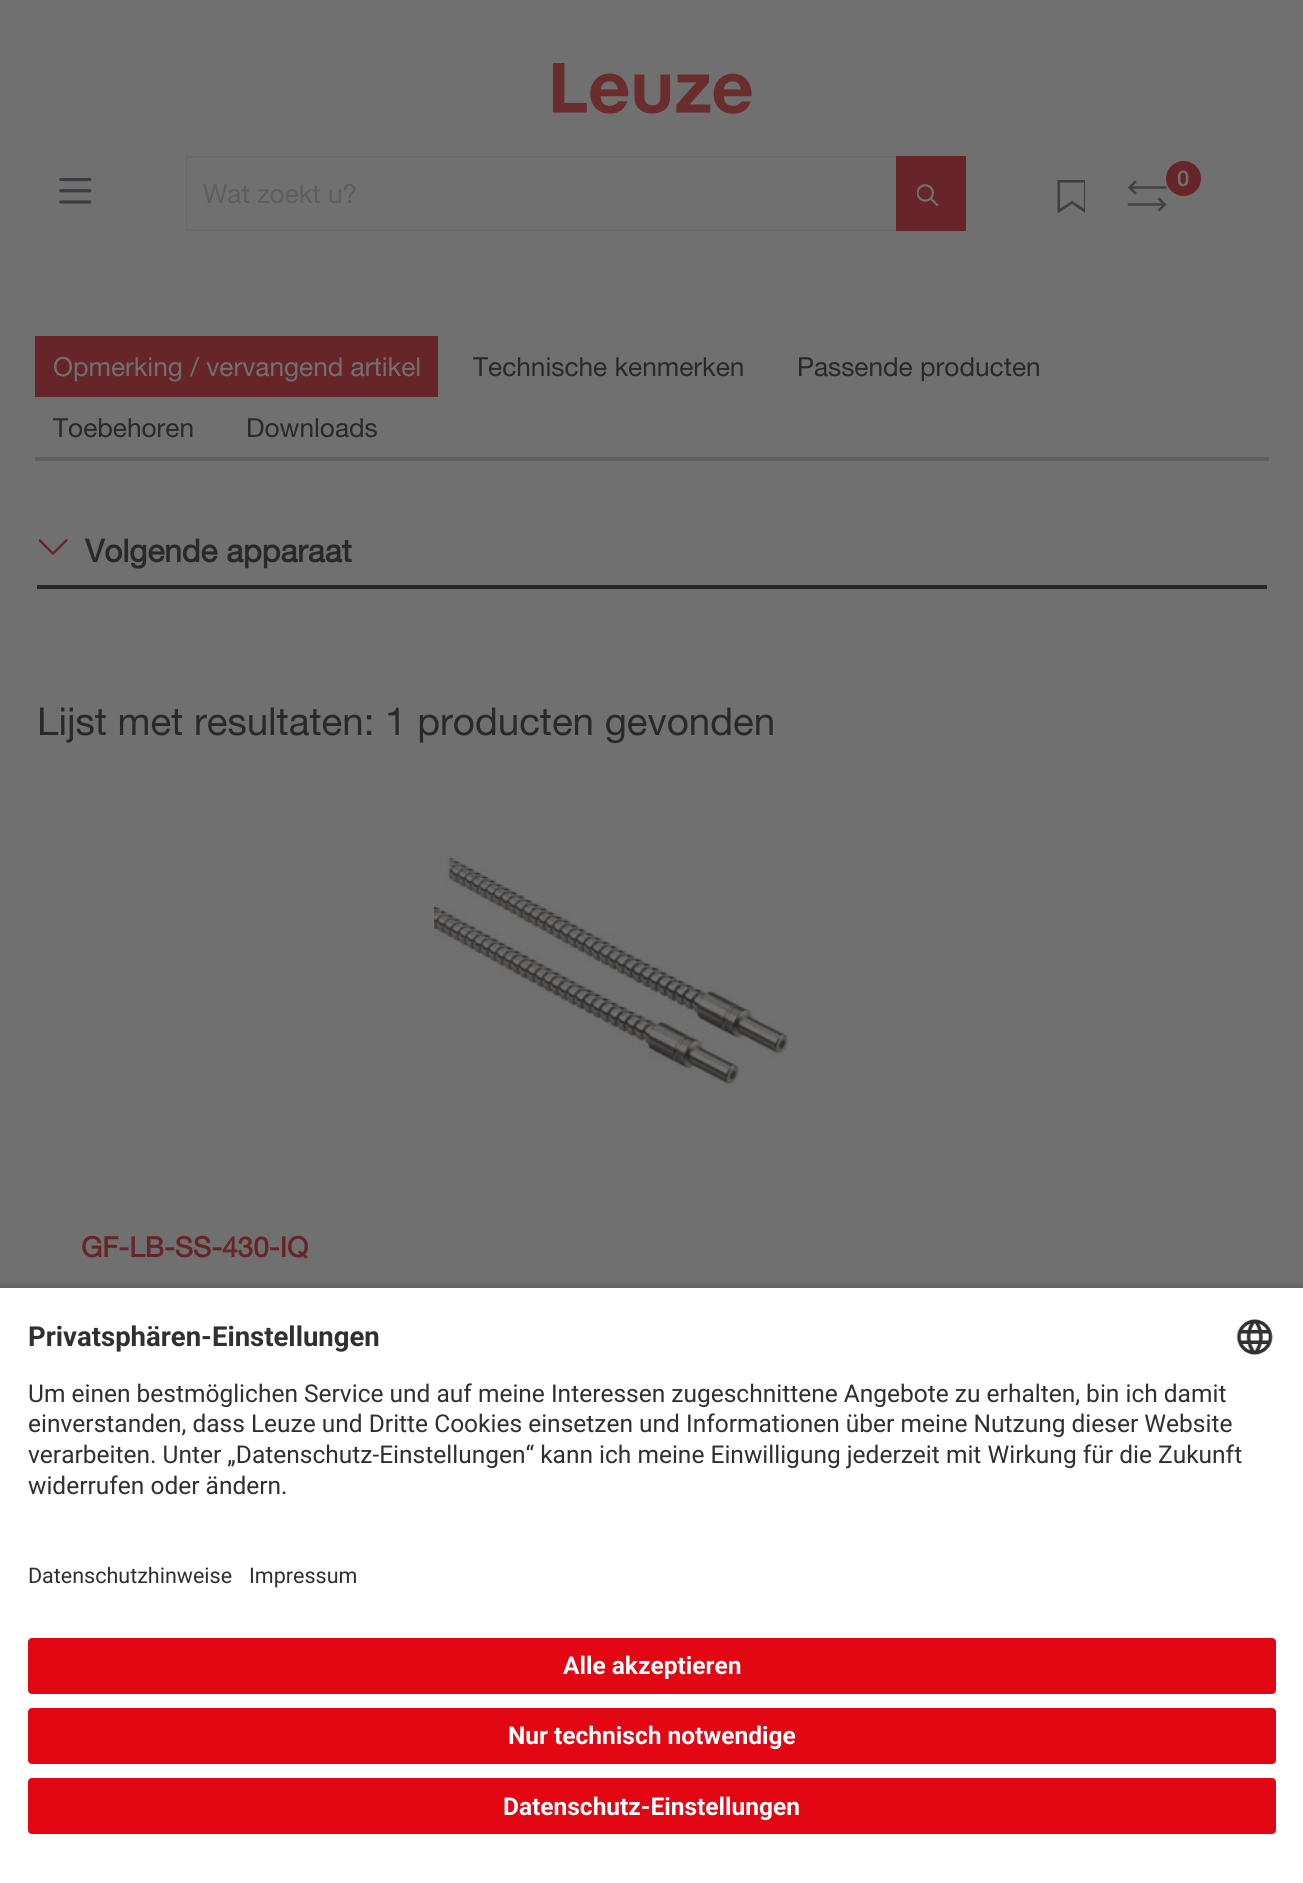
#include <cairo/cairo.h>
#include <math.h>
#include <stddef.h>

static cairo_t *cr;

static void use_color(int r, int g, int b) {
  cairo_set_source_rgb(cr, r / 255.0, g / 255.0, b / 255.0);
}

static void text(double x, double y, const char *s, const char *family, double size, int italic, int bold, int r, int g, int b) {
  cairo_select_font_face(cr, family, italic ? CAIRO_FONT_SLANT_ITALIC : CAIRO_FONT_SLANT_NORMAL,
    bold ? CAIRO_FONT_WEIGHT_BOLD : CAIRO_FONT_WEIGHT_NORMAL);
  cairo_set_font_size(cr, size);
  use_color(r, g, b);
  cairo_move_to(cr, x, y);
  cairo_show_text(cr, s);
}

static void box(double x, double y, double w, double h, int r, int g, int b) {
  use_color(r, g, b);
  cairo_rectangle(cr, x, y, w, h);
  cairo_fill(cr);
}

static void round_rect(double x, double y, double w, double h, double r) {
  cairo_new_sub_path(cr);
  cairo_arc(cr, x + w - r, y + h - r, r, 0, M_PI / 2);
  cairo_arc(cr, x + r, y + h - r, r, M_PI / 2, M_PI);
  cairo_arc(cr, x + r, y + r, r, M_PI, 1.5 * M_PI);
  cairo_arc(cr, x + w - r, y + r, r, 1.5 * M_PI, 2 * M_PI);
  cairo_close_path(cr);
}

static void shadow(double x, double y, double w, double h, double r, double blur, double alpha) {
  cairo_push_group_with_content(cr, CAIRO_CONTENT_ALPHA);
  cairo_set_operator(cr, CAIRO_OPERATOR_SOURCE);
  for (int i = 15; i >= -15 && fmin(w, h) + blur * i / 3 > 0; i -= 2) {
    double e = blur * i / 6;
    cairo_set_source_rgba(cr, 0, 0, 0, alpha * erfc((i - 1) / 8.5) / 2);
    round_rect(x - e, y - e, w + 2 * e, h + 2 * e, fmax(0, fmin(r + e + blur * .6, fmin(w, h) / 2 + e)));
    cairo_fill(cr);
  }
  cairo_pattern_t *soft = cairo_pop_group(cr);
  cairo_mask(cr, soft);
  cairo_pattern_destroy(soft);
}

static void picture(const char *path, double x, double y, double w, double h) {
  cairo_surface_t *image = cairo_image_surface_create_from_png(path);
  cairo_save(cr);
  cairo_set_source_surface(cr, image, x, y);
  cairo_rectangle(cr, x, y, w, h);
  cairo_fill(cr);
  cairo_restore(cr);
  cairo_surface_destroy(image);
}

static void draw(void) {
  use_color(112, 112, 112);
  cairo_paint(cr);
  picture("img_01.png", 553, 63, 199, 51);
  cairo_save(cr);
  cairo_rectangle(cr, 1057, 180, 28, 34);
  cairo_clip(cr);
  use_color(63, 63, 63);
  cairo_new_path(cr);
  cairo_move_to(cr, 1084, 182.5);
  cairo_line_to(cr, 1084, 208.5);
  cairo_line_to(cr, 1072, 201);
  cairo_line_to(cr, 1060, 208.5);
  cairo_line_to(cr, 1060, 182.5);
  cairo_line_to(cr, 1084, 182.5);
  cairo_move_to(cr, 1086, 180);
  cairo_line_to(cr, 1057.5, 180);
  cairo_line_to(cr, 1057.5, 213.5);
  cairo_line_to(cr, 1072, 204);
  cairo_line_to(cr, 1086, 213.5);
  cairo_close_path(cr);
  cairo_fill(cr);
  cairo_restore(cr);
  picture("img_02.png", 1127, 180, 40, 32);
  use_color(104, 37, 41);
  cairo_arc(cr, 1183.5, 178.5, 17.5, 0, 2 * M_PI);
  cairo_fill(cr);
  picture("img_03.png", 59, 177, 33, 27);
  use_color(106, 106, 106);
  cairo_new_path(cr);
  cairo_move_to(cr, 186, 156);
  cairo_line_to(cr, 898, 156);
  cairo_line_to(cr, 898, 158);
  cairo_line_to(cr, 187, 158);
  cairo_close_path(cr);
  cairo_fill(cr);
  cairo_new_path(cr);
  cairo_move_to(cr, 898, 231);
  cairo_line_to(cr, 186, 231);
  cairo_line_to(cr, 187, 229);
  cairo_line_to(cr, 898, 229);
  cairo_close_path(cr);
  cairo_fill(cr);
  cairo_set_source_rgba(cr, 0.141, 0.141, 0.141, 0.08);
  cairo_new_path(cr);
  cairo_move_to(cr, 186, 231);
  cairo_line_to(cr, 186, 156);
  cairo_line_to(cr, 187, 158);
  cairo_line_to(cr, 187, 229);
  cairo_close_path(cr);
  cairo_fill(cr);
  box(896, 156, 70, 75, 104, 37, 41);
  picture("img_04.png", 917, 184, 22, 22);
  box(35, 457, 1234, 4, 95, 95, 95);
  box(35, 336, 403, 61, 104, 37, 41);
  box(37, 585, 1230, 4, 41, 41, 41);
  picture("img_05.png", 39, 539, 29, 16);
  picture("img_06.png", 434, 856, 435, 319);
  use_color(0, 0, 0);
  shadow(0, 1293, 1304, 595, 0, 6, 0.8);
  box(0, 1288, 1303, 595, 255, 255, 255);
  picture("img_07.png", 1236, 1319, 37, 36);
  use_color(227, 6, 19);
  round_rect(28, 1638, 1248, 56, 4);
  cairo_fill(cr);
  round_rect(28, 1708, 1248, 56, 4);
  cairo_fill(cr);
  round_rect(28, 1778, 1248, 56, 4);
  cairo_fill(cr);
  text(1177, 186, "0", "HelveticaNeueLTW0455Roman", 21, 0, 1, 112, 112, 112);
  text(203, 203, "Wat zoekt u?", "HelveticaNeueLTW0455Roman", 26.25, 0, 0, 94, 94, 94);
  text(53, 376, "Opmerking / vervangend artikel", "HelveticaNeueLTW0455Roman", 26.25, 0, 0, 112, 112, 112);
  text(473, 376, "Technische kenmerken", "HelveticaNeueLTW0455Roman", 26.25, 0, 0, 41, 41, 41);
  text(797, 376, "Passende producten", "HelveticaNeueLTW0455Roman", 26.25, 0, 0, 41, 41, 41);
  text(53, 437, "Toebehoren", "HelveticaNeueLTW0455Roman", 26.25, 0, 0, 41, 41, 41);
  text(246, 437, "Downloads", "HelveticaNeueLTW0455Roman", 26.25, 0, 0, 41, 41, 41);
  text(85, 562, "Volgende apparaat", "HelveticaNeueLTW0455Roman", 31.5, 0, 1, 41, 41, 41);
  text(37, 735, "Lijst met resultaten: 1 producten gevonden", "HelveticaNeueLTW0455Roman", 38.5, 0, 0, 41, 41, 41);
  text(81, 1257, "GF-LB-SS-430-IQ", "HelveticaNeueLTW0455Roman", 28, 0, 1, 104, 37, 41);
  text(28, 1346, "Privatsphären-Einstellungen", "Roboto", 27.5, 0, 1, 48, 48, 48);
  text(28, 1402, "Um einen bestmöglichen Service und auf meine Interessen zugeschnittene Angebote zu erhalten, bin ich damit", "Roboto", 24.5, 0, 0, 48, 48, 48);
  text(28, 1432, "einverstanden, dass Leuze und Dritte Cookies einsetzen und Informationen über meine Nutzung dieser Website", "Roboto", 24.5, 0, 0, 48, 48, 48);
  text(28, 1463, "verarbeiten. Unter „Datenschutz-Einstellungen“ kann ich meine Einwilligung jederzeit mit Wirkung für die Zukunft", "Roboto", 24.5, 0, 0, 48, 48, 48);
  text(28, 1494, "widerrufen oder ändern.", "Roboto", 24.5, 0, 0, 48, 48, 48);
  text(28, 1583, "Datenschutzhinweise", "Roboto", 21.5, 0, 0, 48, 48, 48);
  text(249, 1583, "Impressum", "Roboto", 21.5, 0, 0, 48, 48, 48);
  text(563, 1674, "Alle akzeptieren", "Roboto", 24.5, 0, 1, 255, 255, 255);
  text(508, 1744, "Nur technisch notwendige", "Roboto", 24.5, 0, 1, 255, 255, 255);
  text(503, 1815, "Datenschutz-Einstellungen", "Roboto", 24.5, 0, 1, 255, 255, 255);
}

int main(void) {
  cairo_surface_t *surface = cairo_image_surface_create(CAIRO_FORMAT_RGB24, 1303, 1883);
  cr = cairo_create(surface);
  cairo_font_options_t *options = cairo_font_options_create();
  cairo_font_options_set_hint_metrics(options, CAIRO_HINT_METRICS_OFF);
  cairo_font_options_set_hint_style(options, CAIRO_HINT_STYLE_NONE);
  cairo_set_font_options(cr, options);
  cairo_set_miter_limit(cr, 4);
  draw();
  cairo_surface_write_to_png(surface, "out.png");
  cairo_font_options_destroy(options);
  cairo_destroy(cr);
  cairo_surface_destroy(surface);
  return 0;
}
